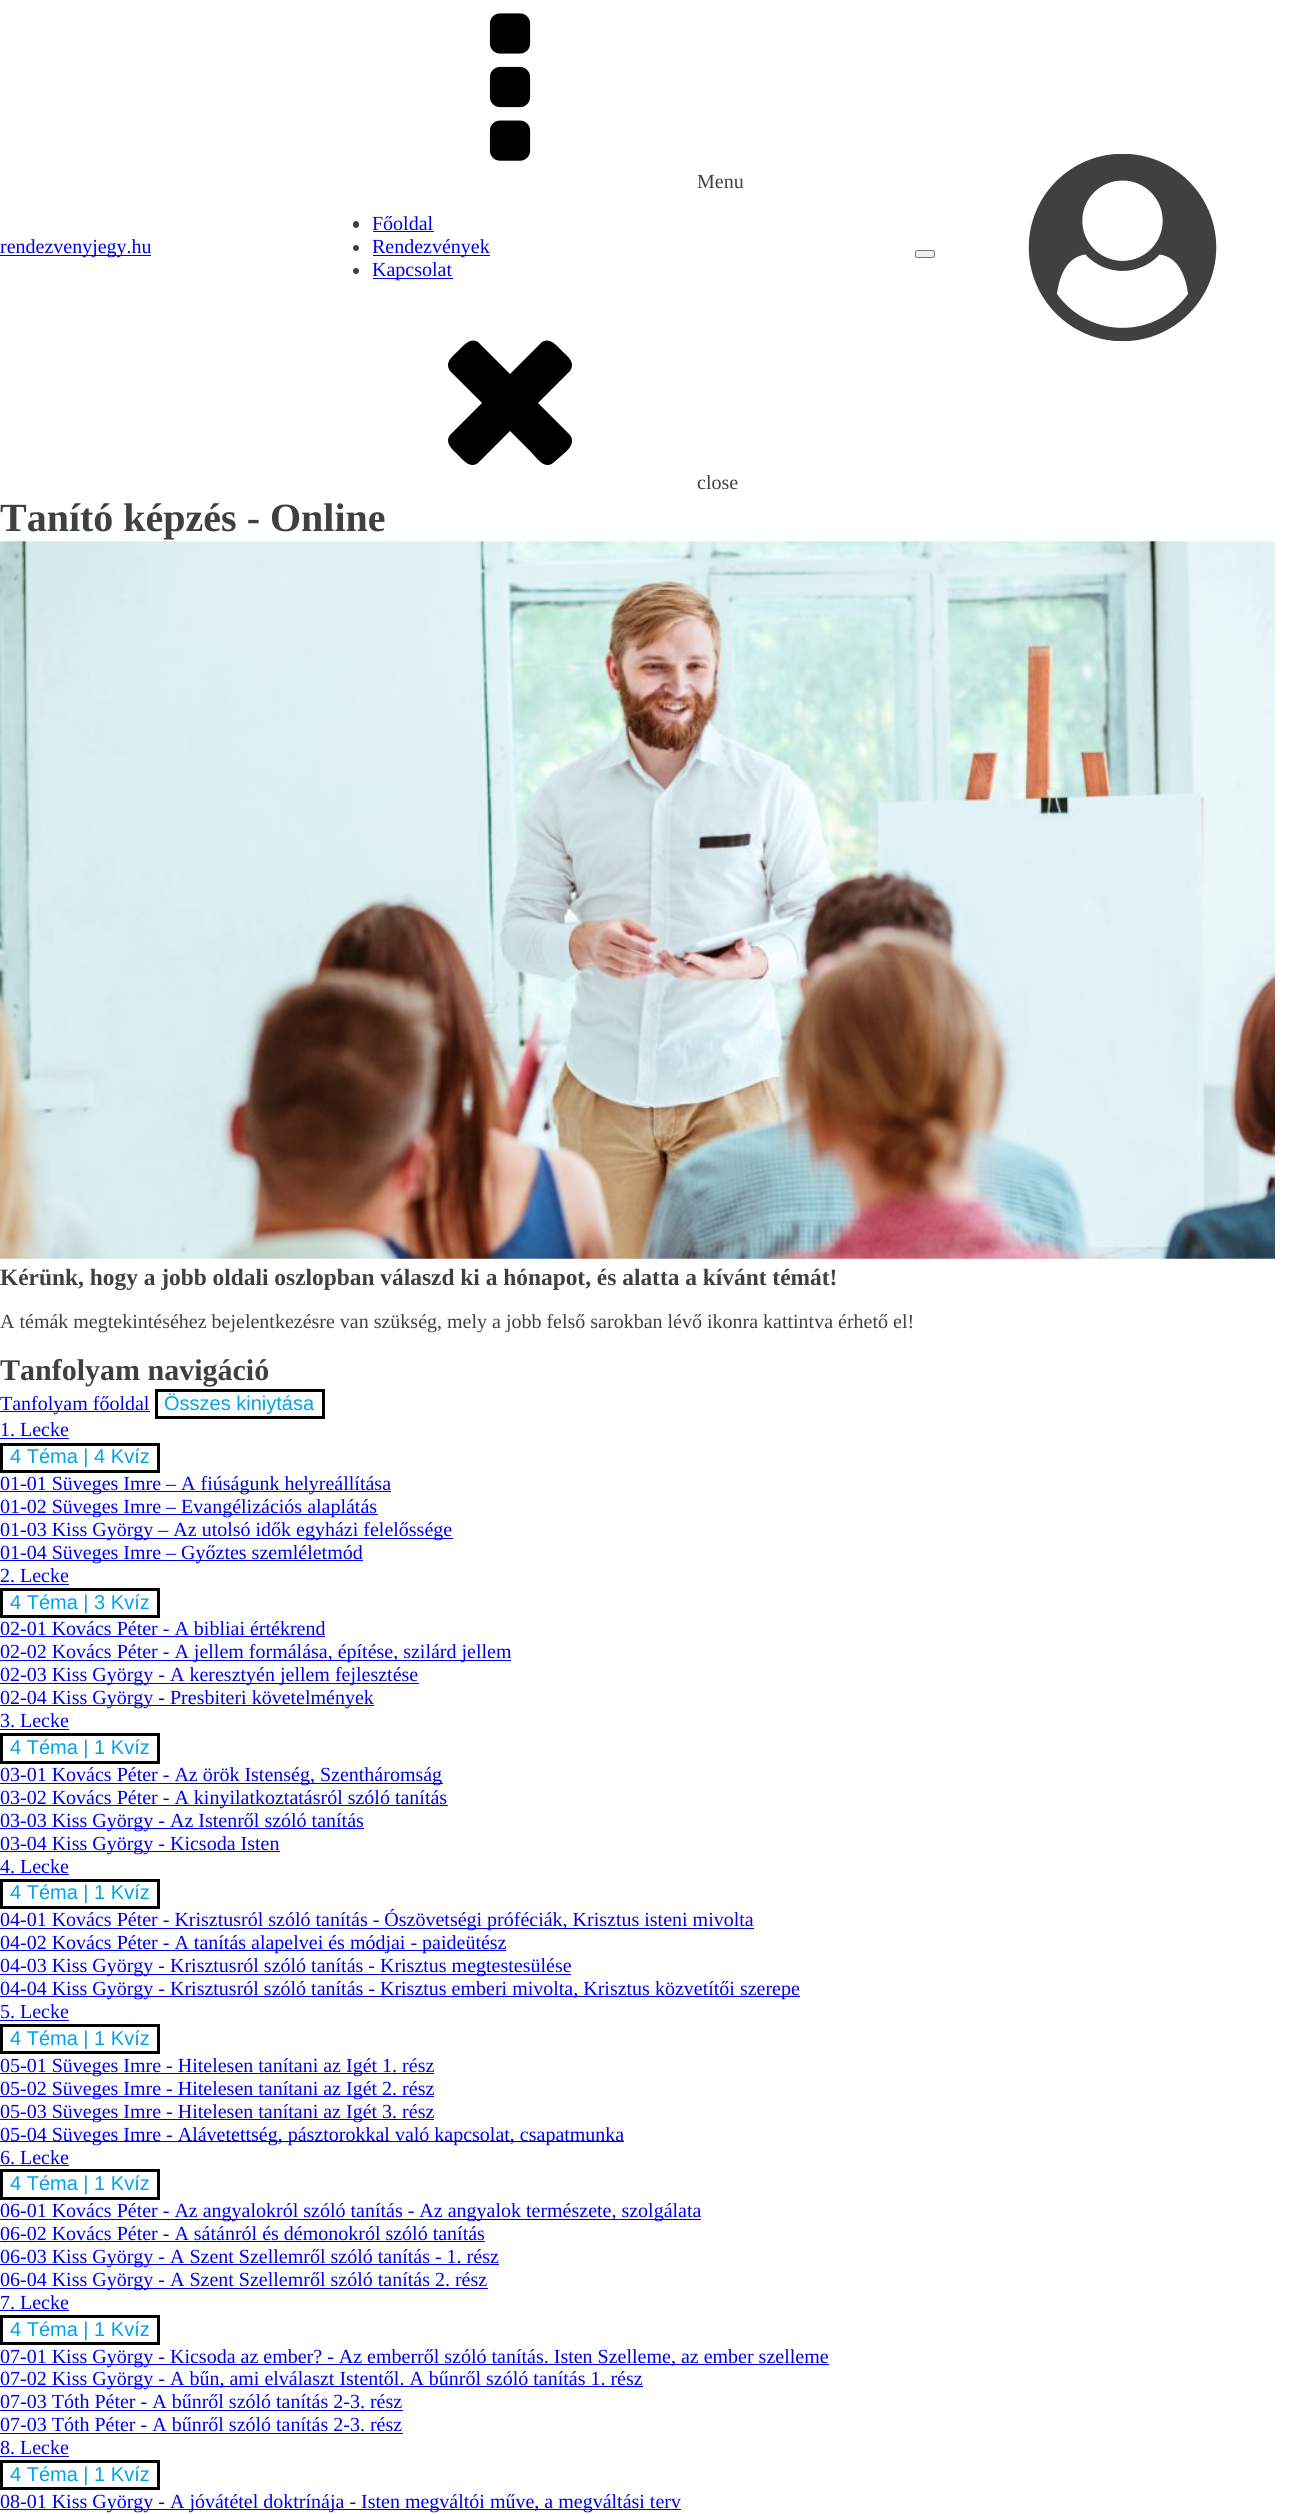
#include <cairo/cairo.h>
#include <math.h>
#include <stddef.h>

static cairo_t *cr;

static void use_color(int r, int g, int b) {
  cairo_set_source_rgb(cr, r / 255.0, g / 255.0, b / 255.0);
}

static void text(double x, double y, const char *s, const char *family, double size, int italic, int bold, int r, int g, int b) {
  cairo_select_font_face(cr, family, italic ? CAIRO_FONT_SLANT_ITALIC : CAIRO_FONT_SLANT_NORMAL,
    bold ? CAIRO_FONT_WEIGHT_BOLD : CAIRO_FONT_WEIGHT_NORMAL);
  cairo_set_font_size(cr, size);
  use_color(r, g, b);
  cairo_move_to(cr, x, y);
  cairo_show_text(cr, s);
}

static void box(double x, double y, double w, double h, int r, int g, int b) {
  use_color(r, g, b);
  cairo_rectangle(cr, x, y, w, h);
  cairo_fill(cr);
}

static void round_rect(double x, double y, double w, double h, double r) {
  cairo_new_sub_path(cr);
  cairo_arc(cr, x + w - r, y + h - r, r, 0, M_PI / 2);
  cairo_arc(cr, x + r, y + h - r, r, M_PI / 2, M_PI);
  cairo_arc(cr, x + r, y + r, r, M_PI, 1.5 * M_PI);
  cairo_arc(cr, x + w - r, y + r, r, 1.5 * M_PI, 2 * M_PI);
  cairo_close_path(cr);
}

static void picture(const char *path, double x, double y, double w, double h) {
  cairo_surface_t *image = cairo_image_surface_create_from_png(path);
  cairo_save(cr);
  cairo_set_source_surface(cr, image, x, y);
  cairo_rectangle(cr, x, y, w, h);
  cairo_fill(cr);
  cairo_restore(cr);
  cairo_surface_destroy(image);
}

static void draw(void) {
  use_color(255, 255, 255);
  cairo_paint(cr);
  box(0, 255, 151, 1, 0, 0, 238);
  picture("img_01.png", 489, 13, 42, 148);
  use_color(64, 64, 64);
  round_rect(353, 221, 6, 7, 3);
  cairo_fill(cr);
  box(373, 231, 61, 1, 0, 0, 238);
  use_color(64, 64, 64);
  cairo_arc(cr, 356, 248, 3, 0, 2 * M_PI);
  cairo_fill(cr);
  box(373, 255, 117, 1, 0, 0, 238);
  use_color(64, 64, 64);
  cairo_arc(cr, 356, 271, 3, 0, 2 * M_PI);
  cairo_fill(cr);
  box(373, 278, 80, 1, 0, 0, 238);
  use_color(0, 0, 0);
  cairo_new_path(cr);
  cairo_move_to(cr, 572, 441);
  cairo_curve_to(cr, 572, 448, 564, 453, 560, 457);
  cairo_line_to(cr, 553, 463);
  cairo_curve_to(cr, 544, 470, 536, 457, 531, 452);
  cairo_line_to(cr, 510, 431);
  cairo_line_to(cr, 478, 463);
  cairo_curve_to(cr, 470, 469, 463, 460, 458, 455);
  cairo_curve_to(cr, 453, 450, 444, 443, 450, 435);
  cairo_line_to(cr, 482, 403);
  cairo_line_to(cr, 450, 371);
  cairo_curve_to(cr, 444, 362, 453, 356, 458, 351);
  cairo_curve_to(cr, 463, 346, 470, 337, 478, 342);
  cairo_line_to(cr, 510, 374);
  cairo_line_to(cr, 542, 342);
  cairo_curve_to(cr, 550, 337, 557, 346, 562, 351);
  cairo_curve_to(cr, 567, 356, 576, 362, 570, 371);
  cairo_line_to(cr, 538, 403);
  cairo_line_to(cr, 569, 434);
  cairo_curve_to(cr, 571, 436, 572, 438, 572, 441);
  cairo_close_path(cr);
  cairo_fill(cr);
  use_color(239, 239, 239);
  round_rect(915.5, 250.5, 19, 7, 2);
  cairo_fill_preserve(cr);
  use_color(118, 118, 118);
  cairo_set_line_width(cr, 1);
  cairo_stroke(cr);
  picture("img_02.png", 1028, 154, 189, 187);
  picture("img_03.png", 0, 541, 1275, 718);
  box(0, 1411, 150, 1, 0, 0, 238);
  cairo_rectangle(cr, 156.5, 1390.5, 167, 27);
  use_color(0, 0, 0);
  cairo_set_line_width(cr, 3);
  cairo_stroke(cr);
  box(0, 1438, 69, 1, 0, 0, 238);
  cairo_rectangle(cr, 1.5, 1444.5, 157, 27);
  use_color(0, 0, 0);
  cairo_stroke(cr);
  box(0, 1491, 391, 1, 0, 0, 238);
  box(0, 1514, 378, 1, 0, 0, 238);
  box(0, 1538, 453, 1, 0, 0, 238);
  box(0, 1560, 363, 1, 0, 0, 238);
  box(0, 1584, 69, 1, 0, 0, 238);
  cairo_rectangle(cr, 1.5, 1589.5, 157, 27);
  use_color(0, 0, 0);
  cairo_stroke(cr);
  box(0, 1636, 325, 1, 0, 0, 238);
  box(0, 1660, 511, 1, 0, 0, 238);
  box(0, 1683, 419, 1, 0, 0, 238);
  box(0, 1705, 374, 1, 0, 0, 238);
  box(0, 1729, 69, 1, 0, 0, 238);
  cairo_rectangle(cr, 1.5, 1734.5, 157, 28);
  use_color(0, 0, 0);
  cairo_stroke(cr);
  box(0, 1783, 443, 1, 0, 0, 238);
  box(0, 1805, 448, 1, 0, 0, 238);
  box(0, 1828, 364, 1, 0, 0, 238);
  box(0, 1851, 280, 1, 0, 0, 238);
  box(0, 1874, 69, 1, 0, 0, 238);
  cairo_rectangle(cr, 1.5, 1880.5, 157, 27);
  use_color(0, 0, 0);
  cairo_stroke(cr);
  box(0, 1928, 754, 1, 0, 0, 238);
  box(0, 1950, 506, 1, 0, 0, 238);
  box(0, 1974, 571, 1, 0, 0, 238);
  box(0, 1996, 800, 1, 0, 0, 238);
  box(0, 2020, 69, 1, 0, 0, 238);
  cairo_rectangle(cr, 1.5, 2025.5, 157, 27);
  use_color(0, 0, 0);
  cairo_stroke(cr);
  box(0, 2073, 434, 1, 0, 0, 238);
  box(0, 2096, 434, 1, 0, 0, 238);
  box(0, 2119, 434, 1, 0, 0, 238);
  box(0, 2141, 624, 1, 0, 0, 238);
  box(0, 2165, 69, 1, 0, 0, 238);
  cairo_rectangle(cr, 1.5, 2170.5, 157, 28);
  use_color(0, 0, 0);
  cairo_stroke(cr);
  box(0, 2219, 701, 1, 0, 0, 238);
  box(0, 2241, 485, 1, 0, 0, 238);
  box(0, 2264, 499, 1, 0, 0, 238);
  box(0, 2288, 488, 1, 0, 0, 238);
  box(0, 2310, 69, 1, 0, 0, 238);
  cairo_rectangle(cr, 1.5, 2316.5, 157, 27);
  use_color(0, 0, 0);
  cairo_stroke(cr);
  box(0, 2364, 829, 1, 0, 0, 238);
  box(0, 2386, 643, 1, 0, 0, 238);
  box(0, 2410, 403, 1, 0, 0, 238);
  box(0, 2433, 403, 1, 0, 0, 238);
  box(0, 2456, 69, 1, 0, 0, 238);
  cairo_rectangle(cr, 1.5, 2461.5, 157, 27);
  use_color(0, 0, 0);
  cairo_stroke(cr);
  box(0, 2509, 681, 1, 0, 0, 238);
  text(0, 253, "rendezvenyjegy.hu", "Liberation Serif", 20, 0, 0, 0, 0, 238);
  text(697, 188, "Menu", "Liberation Serif", 20, 0, 0, 64, 64, 64);
  text(372, 230, "Főoldal", "Liberation Serif", 20, 0, 0, 0, 0, 238);
  text(372, 253, "Rendezvények", "Liberation Serif", 20, 0, 0, 0, 0, 238);
  text(372, 276, "Kapcsolat", "Liberation Serif", 20, 0, 0, 0, 0, 238);
  text(697, 489, "close", "Liberation Serif", 20, 0, 0, 64, 64, 64);
  text(0, 531, "Tanító képzés - Online", "Liberation Serif", 40, 0, 1, 64, 64, 64);
  text(0, 1285, "Kérünk, hogy a jobb oldali oszlopban válaszd ki a hónapot, és alatta a kívánt témát!", "Liberation Serif", 23.4, 0, 1, 64, 64, 64);
  text(0, 1328, "A témák megtekintéséhez bejelentkezésre van szükség, mely a jobb felső sarokban lévő ikonra kattintva érhető el!", "Liberation Serif", 20, 0, 0, 64, 64, 64);
  text(0, 1380, "Tanfolyam navigáció", "Liberation Serif", 30, 0, 1, 64, 64, 64);
  text(0, 1410, "Tanfolyam főoldal", "Liberation Serif", 20, 0, 0, 0, 0, 238);
  text(164, 1410, "Összes kiniytása", "Liberation Sans", 20, 0, 0, 0, 162, 232);
  text(0, 1436, "1. Lecke", "Liberation Serif", 20, 0, 0, 0, 0, 238);
  text(10, 1463, "4 Téma | 4 Kvíz", "Liberation Sans", 20, 0, 0, 0, 162, 232);
  text(0, 1490, "01-01 Süveges Imre – A fiúságunk helyreállítása", "Liberation Serif", 20, 0, 0, 0, 0, 238);
  text(0, 1513, "01-02 Süveges Imre – Evangélizációs alaplátás", "Liberation Serif", 20, 0, 0, 0, 0, 238);
  text(0, 1536, "01-03 Kiss György – Az utolsó idők egyházi felelőssége", "Liberation Serif", 20, 0, 0, 0, 0, 238);
  text(0, 1559, "01-04 Süveges Imre – Győztes szemléletmód", "Liberation Serif", 20, 0, 0, 0, 0, 238);
  text(0, 1582, "2. Lecke", "Liberation Serif", 20, 0, 0, 0, 0, 238);
  text(10, 1609, "4 Téma | 3 Kvíz", "Liberation Sans", 20, 0, 0, 0, 162, 232);
  text(0, 1635, "02-01 Kovács Péter - A bibliai értékrend", "Liberation Serif", 20, 0, 0, 0, 0, 238);
  text(0, 1658, "02-02 Kovács Péter - A jellem formálása, építése, szilárd jellem", "Liberation Serif", 20, 0, 0, 0, 0, 238);
  text(0, 1681, "02-03 Kiss György - A keresztyén jellem fejlesztése", "Liberation Serif", 20, 0, 0, 0, 0, 238);
  text(0, 1704, "02-04 Kiss György - Presbiteri követelmények", "Liberation Serif", 20, 0, 0, 0, 0, 238);
  text(0, 1727, "3. Lecke", "Liberation Serif", 20, 0, 0, 0, 0, 238);
  text(10, 1754, "4 Téma | 1 Kvíz", "Liberation Sans", 20, 0, 0, 0, 162, 232);
  text(0, 1781, "03-01 Kovács Péter - Az örök Istenség, Szentháromság", "Liberation Serif", 20, 0, 0, 0, 0, 238);
  text(0, 1804, "03-02 Kovács Péter - A kinyilatkoztatásról szóló tanítás", "Liberation Serif", 20, 0, 0, 0, 0, 238);
  text(0, 1827, "03-03 Kiss György - Az Istenről szóló tanítás", "Liberation Serif", 20, 0, 0, 0, 0, 238);
  text(0, 1850, "03-04 Kiss György - Kicsoda Isten", "Liberation Serif", 20, 0, 0, 0, 0, 238);
  text(0, 1873, "4. Lecke", "Liberation Serif", 20, 0, 0, 0, 0, 238);
  text(10, 1899, "4 Téma | 1 Kvíz", "Liberation Sans", 20, 0, 0, 0, 162, 232);
  text(0, 1926, "04-01 Kovács Péter - Krisztusról szóló tanítás - Ószövetségi próféciák, Krisztus isteni mivolta", "Liberation Serif", 20, 0, 0, 0, 0, 238);
  text(0, 1949, "04-02 Kovács Péter - A tanítás alapelvei és módjai - paideütész", "Liberation Serif", 20, 0, 0, 0, 0, 238);
  text(0, 1972, "04-03 Kiss György - Krisztusról szóló tanítás - Krisztus megtestesülése", "Liberation Serif", 20, 0, 0, 0, 0, 238);
  text(0, 1995, "04-04 Kiss György - Krisztusról szóló tanítás - Krisztus emberi mivolta, Krisztus közvetítői szerepe", "Liberation Serif", 20, 0, 0, 0, 0, 238);
  text(0, 2018, "5. Lecke", "Liberation Serif", 20, 0, 0, 0, 0, 238);
  text(10, 2045, "4 Téma | 1 Kvíz", "Liberation Sans", 20, 0, 0, 0, 162, 232);
  text(0, 2072, "05-01 Süveges Imre - Hitelesen tanítani az Igét 1. rész", "Liberation Serif", 20, 0, 0, 0, 0, 238);
  text(0, 2095, "05-02 Süveges Imre - Hitelesen tanítani az Igét 2. rész", "Liberation Serif", 20, 0, 0, 0, 0, 238);
  text(0, 2118, "05-03 Süveges Imre - Hitelesen tanítani az Igét 3. rész", "Liberation Serif", 20, 0, 0, 0, 0, 238);
  text(0, 2141, "05-04 Süveges Imre - Alávetettség, pásztorokkal való kapcsolat, csapatmunka", "Liberation Serif", 20, 0, 0, 0, 0, 238);
  text(0, 2164, "6. Lecke", "Liberation Serif", 20, 0, 0, 0, 0, 238);
  text(10, 2190, "4 Téma | 1 Kvíz", "Liberation Sans", 20, 0, 0, 0, 162, 232);
  text(0, 2217, "06-01 Kovács Péter - Az angyalokról szóló tanítás - Az angyalok természete, szolgálata", "Liberation Serif", 20, 0, 0, 0, 0, 238);
  text(0, 2240, "06-02 Kovács Péter - A sátánról és démonokról szóló tanítás", "Liberation Serif", 20, 0, 0, 0, 0, 238);
  text(0, 2263, "06-03 Kiss György - A Szent Szellemről szóló tanítás - 1. rész", "Liberation Serif", 20, 0, 0, 0, 0, 238);
  text(0, 2286, "06-04 Kiss György - A Szent Szellemről szóló tanítás 2. rész", "Liberation Serif", 20, 0, 0, 0, 0, 238);
  text(0, 2309, "7. Lecke", "Liberation Serif", 20, 0, 0, 0, 0, 238);
  text(10, 2336, "4 Téma | 1 Kvíz", "Liberation Sans", 20, 0, 0, 0, 162, 232);
  text(0, 2363, "07-01 Kiss György - Kicsoda az ember? - Az emberről szóló tanítás. Isten Szelleme, az ember szelleme", "Liberation Serif", 20, 0, 0, 0, 0, 238);
  text(0, 2385, "07-02 Kiss György - A bűn, ami elválaszt Istentől. A bűnről szóló tanítás 1. rész", "Liberation Serif", 20, 0, 0, 0, 0, 238);
  text(0, 2408, "07-03 Tóth Péter - A bűnről szóló tanítás 2-3. rész", "Liberation Serif", 20, 0, 0, 0, 0, 238);
  text(0, 2431, "07-03 Tóth Péter - A bűnről szóló tanítás 2-3. rész", "Liberation Serif", 20, 0, 0, 0, 0, 238);
  text(0, 2454, "8. Lecke", "Liberation Serif", 20, 0, 0, 0, 0, 238);
  text(10, 2481, "4 Téma | 1 Kvíz", "Liberation Sans", 20, 0, 0, 0, 162, 232);
  text(0, 2508, "08-01 Kiss György - A jóvátétel doktrínája - Isten megváltói műve, a megváltási terv", "Liberation Serif", 20, 0, 0, 0, 0, 238);
}

int main(void) {
  cairo_surface_t *surface = cairo_image_surface_create(CAIRO_FORMAT_RGB24, 1309, 2514);
  cr = cairo_create(surface);
  cairo_font_options_t *options = cairo_font_options_create();
  cairo_font_options_set_hint_metrics(options, CAIRO_HINT_METRICS_OFF);
  cairo_font_options_set_hint_style(options, CAIRO_HINT_STYLE_NONE);
  cairo_set_font_options(cr, options);
  cairo_set_miter_limit(cr, 4);
  draw();
  cairo_surface_write_to_png(surface, "out.png");
  cairo_font_options_destroy(options);
  cairo_destroy(cr);
  cairo_surface_destroy(surface);
  return 0;
}
